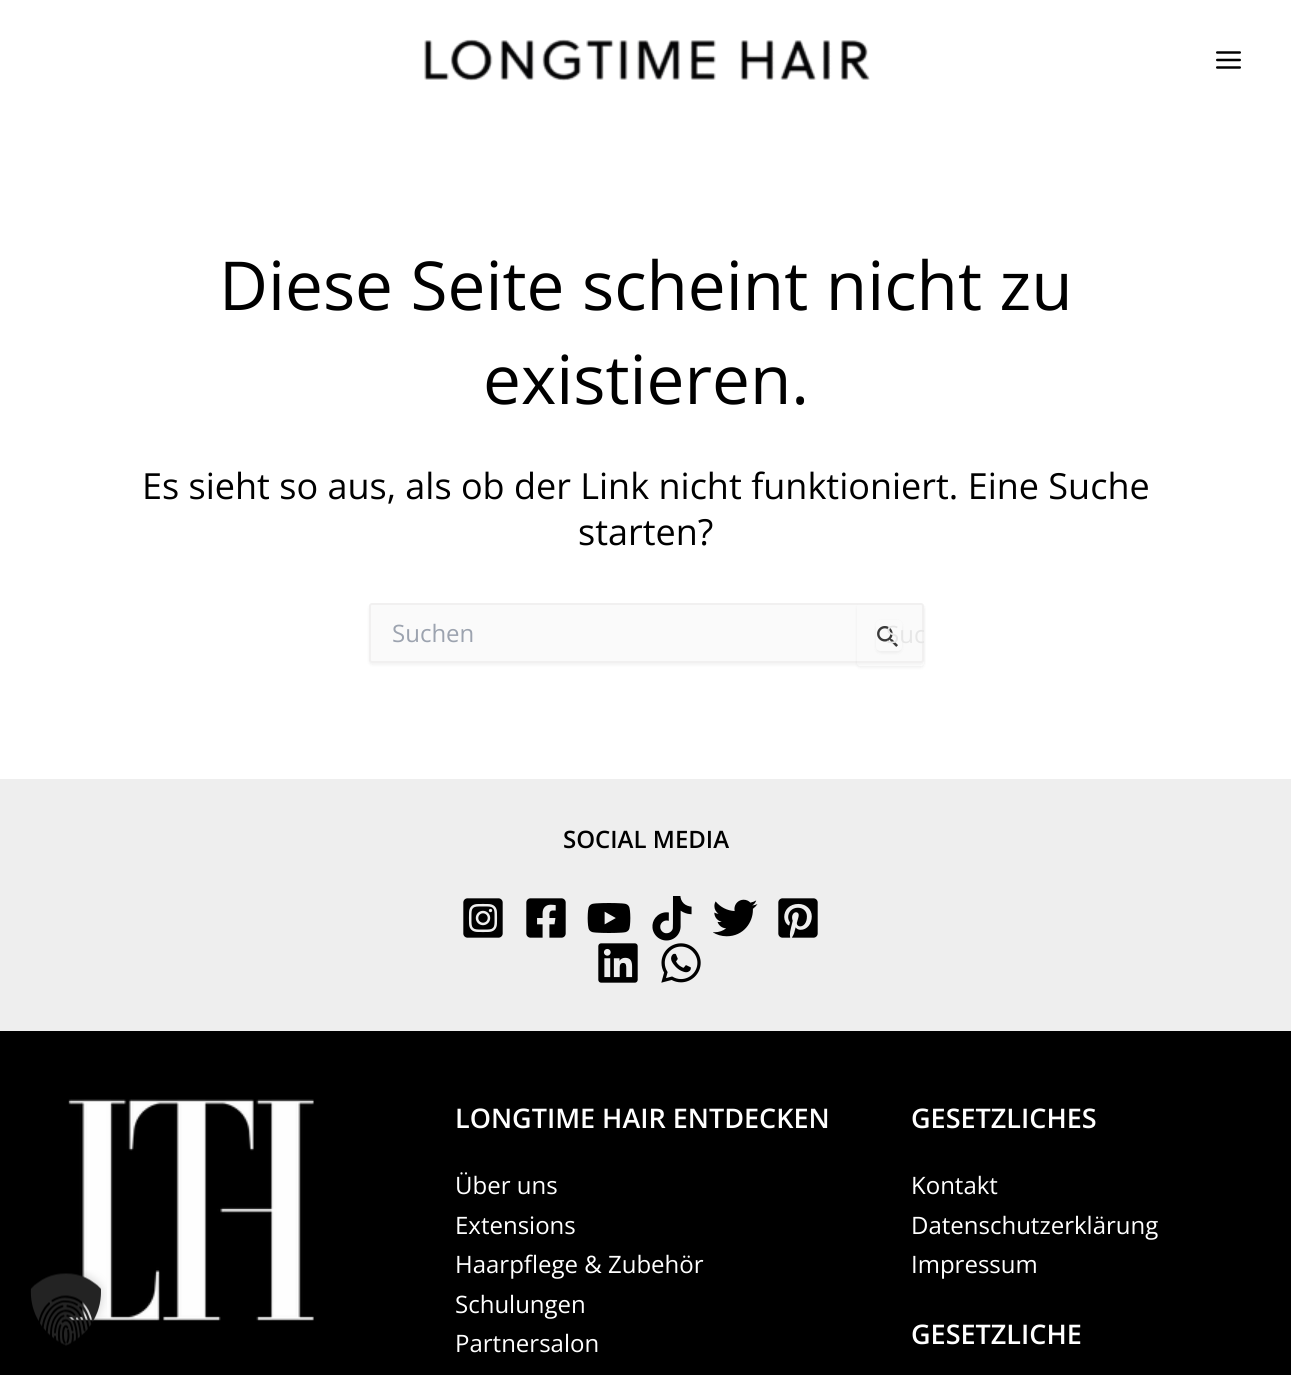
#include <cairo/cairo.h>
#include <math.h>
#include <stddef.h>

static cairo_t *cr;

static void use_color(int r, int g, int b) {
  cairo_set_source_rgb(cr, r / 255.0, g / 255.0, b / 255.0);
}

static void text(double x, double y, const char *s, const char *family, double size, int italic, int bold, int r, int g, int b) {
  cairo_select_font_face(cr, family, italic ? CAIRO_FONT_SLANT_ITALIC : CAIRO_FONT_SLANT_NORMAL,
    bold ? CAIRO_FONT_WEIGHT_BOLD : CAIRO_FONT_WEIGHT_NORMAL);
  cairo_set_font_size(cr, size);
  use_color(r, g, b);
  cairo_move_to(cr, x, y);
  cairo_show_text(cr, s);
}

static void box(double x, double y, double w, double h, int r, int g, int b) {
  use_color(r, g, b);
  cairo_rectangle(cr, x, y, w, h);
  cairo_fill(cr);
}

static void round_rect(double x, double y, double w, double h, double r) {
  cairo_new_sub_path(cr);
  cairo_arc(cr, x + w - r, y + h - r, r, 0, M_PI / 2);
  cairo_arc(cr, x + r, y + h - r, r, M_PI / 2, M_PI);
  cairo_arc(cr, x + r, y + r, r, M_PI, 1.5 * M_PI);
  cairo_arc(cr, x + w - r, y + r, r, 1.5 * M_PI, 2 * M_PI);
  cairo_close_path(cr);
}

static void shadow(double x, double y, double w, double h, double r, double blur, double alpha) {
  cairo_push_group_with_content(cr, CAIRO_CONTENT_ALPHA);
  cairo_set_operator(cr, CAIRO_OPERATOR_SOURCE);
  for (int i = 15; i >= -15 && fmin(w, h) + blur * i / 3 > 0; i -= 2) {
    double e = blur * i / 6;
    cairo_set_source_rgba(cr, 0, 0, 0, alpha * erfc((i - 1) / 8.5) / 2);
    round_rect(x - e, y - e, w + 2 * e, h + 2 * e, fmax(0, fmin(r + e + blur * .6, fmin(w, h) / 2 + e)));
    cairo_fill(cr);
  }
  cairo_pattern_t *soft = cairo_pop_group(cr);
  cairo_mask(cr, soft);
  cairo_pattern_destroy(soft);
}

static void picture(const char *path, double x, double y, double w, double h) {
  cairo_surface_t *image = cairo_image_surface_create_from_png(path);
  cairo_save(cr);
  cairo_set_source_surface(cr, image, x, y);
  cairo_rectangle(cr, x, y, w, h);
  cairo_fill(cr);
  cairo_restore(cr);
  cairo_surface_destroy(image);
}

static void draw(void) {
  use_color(255, 255, 255);
  cairo_paint(cr);
  box(0, 1031, 1291, 344, 0, 0, 0);
  picture("img_13.png", 68, 1099, 246, 222);
  picture("img_01.png", 30, 1270, 77, 76);
  picture("img_02.png", 424, 39, 446, 42);
  picture("img_03.png", 1216, 51, 25, 18);
  use_color(0, 0, 0);
  shadow(369, 605, 555, 60, 3, 1.5, 0.05);
  use_color(250, 250, 250);
  round_rect(370, 604, 553, 58, 2);
  cairo_fill_preserve(cr);
  use_color(241, 240, 240);
  cairo_stroke(cr);
  cairo_save(cr);
  cairo_set_fill_rule(cr, CAIRO_FILL_RULE_EVEN_ODD);
  cairo_new_path(cr);
  cairo_move_to(cr, 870, 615);
  cairo_line_to(cr, 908, 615);
  cairo_line_to(cr, 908, 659);
  cairo_line_to(cr, 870, 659);
  cairo_close_path(cr);
  cairo_move_to(cr, 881, 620);
  cairo_line_to(cr, 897, 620);
  cairo_curve_to(cr, 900, 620, 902, 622, 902, 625);
  cairo_line_to(cr, 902, 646);
  cairo_curve_to(cr, 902, 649, 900, 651, 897, 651);
  cairo_line_to(cr, 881, 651);
  cairo_curve_to(cr, 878, 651, 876, 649, 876, 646);
  cairo_line_to(cr, 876, 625);
  cairo_curve_to(cr, 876, 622, 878, 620, 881, 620);
  cairo_close_path(cr);
  cairo_clip(cr);
  use_color(0, 0, 0);
  shadow(876, 621, 26, 32, 5, 1.5, 0.05);
  cairo_restore(cr);
  picture("img_04.png", 877, 626, 21, 21);
  cairo_save(cr);
  cairo_set_fill_rule(cr, CAIRO_FILL_RULE_EVEN_ODD);
  cairo_new_path(cr);
  cairo_move_to(cr, 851, 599);
  cairo_line_to(cr, 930, 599);
  cairo_line_to(cr, 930, 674);
  cairo_line_to(cr, 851, 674);
  cairo_close_path(cr);
  cairo_move_to(cr, 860, 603);
  cairo_line_to(cr, 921, 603);
  cairo_curve_to(cr, 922.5, 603, 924, 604.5, 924, 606);
  cairo_line_to(cr, 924, 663);
  cairo_curve_to(cr, 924, 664.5, 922.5, 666, 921, 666);
  cairo_line_to(cr, 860, 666);
  cairo_curve_to(cr, 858.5, 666, 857, 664.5, 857, 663);
  cairo_line_to(cr, 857, 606);
  cairo_curve_to(cr, 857, 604.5, 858.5, 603, 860, 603);
  cairo_close_path(cr);
  cairo_clip(cr);
  use_color(0, 0, 0);
  shadow(857, 605, 67, 63, 3, 1.5, 0.05);
  cairo_restore(cr);
  box(0, 779, 1291, 252, 238, 238, 238);
  picture("img_05.png", 463, 898, 40, 40);
  picture("img_06.png", 526, 898, 40, 40);
  picture("img_07.png", 587, 903, 44, 30);
  picture("img_08.png", 652, 896, 40, 45);
  picture("img_09.png", 713, 899, 45, 38);
  picture("img_10.png", 778, 898, 40, 40);
  picture("img_11.png", 598, 943, 40, 40);
  picture("img_12.png", 661, 943, 40, 40);
  text(219, 310, "Diese Seite scheint nicht zu", "Open Sans", 67.5, 0, 0, 0, 0, 0);
  text(483, 404, "existieren.", "Open Sans", 67.5, 0, 0, 0, 0, 0);
  text(142, 499, "Es sieht so aus, als ob der Link nicht funktioniert. Eine Suche", "Open Sans", 36, 0, 0, 0, 0, 0);
  text(578, 545, "starten?", "Open Sans", 36, 0, 0, 0, 0, 0);
  text(392, 642, "Suchen", "Open Sans", 24, 0, 0, 156, 163, 175);
  cairo_save(cr);
  round_rect(857, 603, 67, 63, 3);
  cairo_clip(cr);
  text(886, 643, "Suc", "Open Sans", 24, 0, 0, 230, 230, 230);
  cairo_restore(cr);
  text(563, 848, "SOCIAL MEDIA", "Open Sans SemiBold", 24, 0, 0, 0, 0, 0);
  text(455, 1128, "LONGTIME HAIR ENTDECKEN", "Open Sans SemiBold", 27, 0, 0, 255, 255, 255);
  text(455, 1194, "Über uns", "Open Sans", 24, 0, 0, 255, 255, 255);
  text(455, 1234, "Extensions", "Open Sans", 24, 0, 0, 255, 255, 255);
  text(455, 1273, "Haarpflege & Zubehör", "Open Sans", 24, 0, 0, 255, 255, 255);
  text(455, 1313, "Schulungen", "Open Sans", 24, 0, 0, 255, 255, 255);
  text(455, 1352, "Partnersalon", "Open Sans", 24, 0, 0, 255, 255, 255);
  text(911, 1128, "GESETZLICHES", "Open Sans SemiBold", 27, 0, 0, 255, 255, 255);
  text(911, 1194, "Kontakt", "Open Sans", 24, 0, 0, 255, 255, 255);
  text(911, 1234, "Datenschutzerklärung", "Open Sans", 24, 0, 0, 255, 255, 255);
  text(911, 1273, "Impressum", "Open Sans", 24, 0, 0, 255, 255, 255);
  text(911, 1344, "GESETZLICHE", "Open Sans SemiBold", 27, 0, 0, 255, 255, 255);
}

int main(void) {
  cairo_surface_t *surface = cairo_image_surface_create(CAIRO_FORMAT_RGB24, 1291, 1375);
  cr = cairo_create(surface);
  cairo_font_options_t *options = cairo_font_options_create();
  cairo_font_options_set_hint_metrics(options, CAIRO_HINT_METRICS_OFF);
  cairo_font_options_set_hint_style(options, CAIRO_HINT_STYLE_NONE);
  cairo_set_font_options(cr, options);
  cairo_set_miter_limit(cr, 4);
  draw();
  cairo_surface_write_to_png(surface, "out.png");
  cairo_font_options_destroy(options);
  cairo_destroy(cr);
  cairo_surface_destroy(surface);
  return 0;
}
